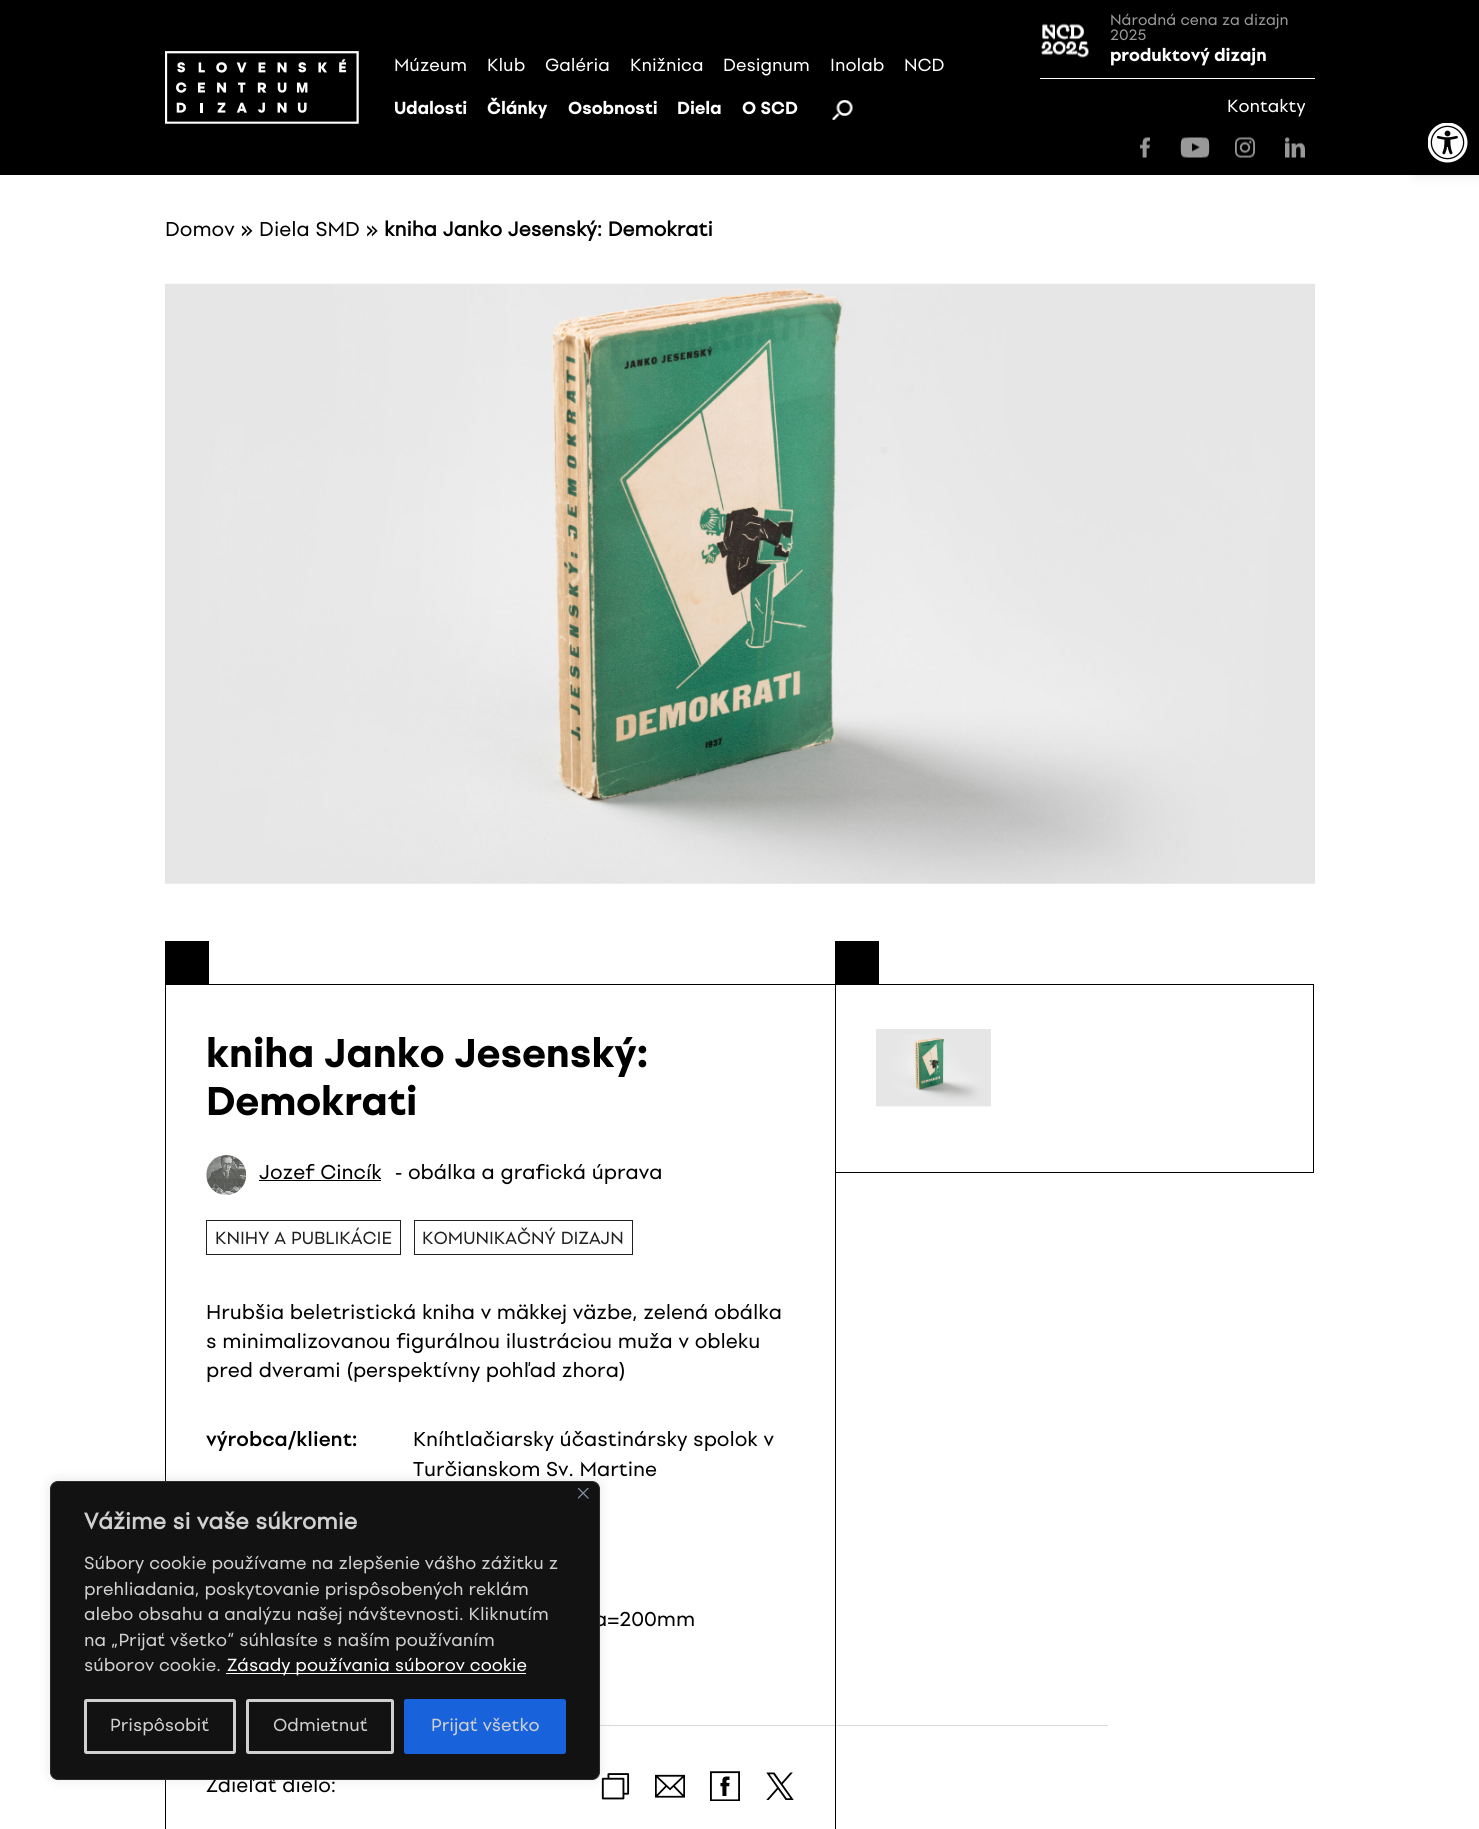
#include <cairo/cairo.h>
#include <math.h>
#include <stddef.h>

static cairo_t *cr;

static void use_color(int r, int g, int b) {
  cairo_set_source_rgb(cr, r / 255.0, g / 255.0, b / 255.0);
}

static void text(double x, double y, const char *s, const char *family, double size, int italic, int bold, int r, int g, int b) {
  cairo_select_font_face(cr, family, italic ? CAIRO_FONT_SLANT_ITALIC : CAIRO_FONT_SLANT_NORMAL,
    bold ? CAIRO_FONT_WEIGHT_BOLD : CAIRO_FONT_WEIGHT_NORMAL);
  cairo_set_font_size(cr, size);
  use_color(r, g, b);
  cairo_move_to(cr, x, y);
  cairo_show_text(cr, s);
}

static void box(double x, double y, double w, double h, int r, int g, int b) {
  use_color(r, g, b);
  cairo_rectangle(cr, x, y, w, h);
  cairo_fill(cr);
}

static void round_rect(double x, double y, double w, double h, double r) {
  cairo_new_sub_path(cr);
  cairo_arc(cr, x + w - r, y + h - r, r, 0, M_PI / 2);
  cairo_arc(cr, x + r, y + h - r, r, M_PI / 2, M_PI);
  cairo_arc(cr, x + r, y + r, r, M_PI, 1.5 * M_PI);
  cairo_arc(cr, x + w - r, y + r, r, 1.5 * M_PI, 2 * M_PI);
  cairo_close_path(cr);
}

static void shadow(double x, double y, double w, double h, double r, double blur, double alpha) {
  cairo_push_group_with_content(cr, CAIRO_CONTENT_ALPHA);
  cairo_set_operator(cr, CAIRO_OPERATOR_SOURCE);
  for (int i = 15; i >= -15 && fmin(w, h) + blur * i / 3 > 0; i -= 2) {
    double e = blur * i / 6;
    cairo_set_source_rgba(cr, 0, 0, 0, alpha * erfc((i - 1) / 8.5) / 2);
    round_rect(x - e, y - e, w + 2 * e, h + 2 * e, fmax(0, fmin(r + e + blur * .6, fmin(w, h) / 2 + e)));
    cairo_fill(cr);
  }
  cairo_pattern_t *soft = cairo_pop_group(cr);
  cairo_mask(cr, soft);
  cairo_pattern_destroy(soft);
}

static void picture(const char *path, double x, double y, double w, double h) {
  cairo_surface_t *image = cairo_image_surface_create_from_png(path);
  cairo_save(cr);
  cairo_set_source_surface(cr, image, x, y);
  cairo_rectangle(cr, x, y, w, h);
  cairo_fill(cr);
  cairo_restore(cr);
  cairo_surface_destroy(image);
}

static void draw(void) {
  use_color(255, 255, 255);
  cairo_paint(cr);
  box(0, 0, 1479, 175, 0, 0, 0);
  picture("img_01.png", 165, 51, 194, 73);
  picture("img_02.png", 832, 100, 21, 20);
  picture("img_03.png", 1041, 23, 48, 35);
  box(1040, 78, 275, 1, 255, 255, 255);
  picture("img_04.png", 1140, 137, 10, 21);
  picture("img_05.png", 1180, 137, 30, 21);
  picture("img_06.png", 1235, 137, 20, 21);
  picture("img_07.png", 1285, 137, 20, 21);
  cairo_save(cr);
  cairo_set_fill_rule(cr, CAIRO_FILL_RULE_EVEN_ODD);
  cairo_new_path(cr);
  cairo_move_to(cr, 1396, 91);
  cairo_line_to(cr, 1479, 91);
  cairo_line_to(cr, 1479, 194);
  cairo_line_to(cr, 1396, 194);
  cairo_close_path(cr);
  cairo_move_to(cr, 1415, 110);
  cairo_line_to(cr, 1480, 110);
  cairo_line_to(cr, 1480, 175);
  cairo_line_to(cr, 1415, 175);
  cairo_close_path(cr);
  cairo_clip(cr);
  use_color(0, 0, 0);
  shadow(1415, 110, 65, 65, 0, 6, 0.1);
  cairo_restore(cr);
  picture("img_08.png", 1428, 123, 40, 40);
  picture("img_09.png", 165, 283, 1150, 601);
  cairo_rectangle(cr, 165.5, 984.5, 670, 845);
  use_color(0, 0, 0);
  cairo_set_line_width(cr, 1);
  cairo_stroke(cr);
  box(165, 941, 44, 43, 0, 0, 0);
  picture("img_10.png", 206, 1155, 41, 40);
  box(259, 1180, 122, 1, 0, 0, 0);
  cairo_rectangle(cr, 206.5, 1220.5, 194, 34);
  use_color(32, 32, 32);
  cairo_stroke(cr);
  cairo_rectangle(cr, 414.5, 1220.5, 218, 34);
  cairo_stroke(cr);
  cairo_set_source_rgba(cr, 0, 0, 0, 0.15);
  cairo_rectangle(cr, 600, 1725, 508, 1);
  cairo_fill(cr);
  picture("img_11.png", 601, 1773, 29, 27);
  picture("img_12.png", 655, 1774, 30, 24);
  picture("img_13.png", 710, 1771, 30, 30);
  picture("img_14.png", 766, 1772, 28, 28);
  cairo_rectangle(cr, 835.5, 984.5, 478, 188);
  use_color(0, 0, 0);
  cairo_stroke(cr);
  box(835, 941, 44, 43, 0, 0, 0);
  picture("img_15.png", 876, 1029, 115, 78);
  use_color(172, 171, 171);
  shadow(50, 1480, 550, 299, 8, 6, 0.3);
  text(394, 71, "Múzeum", "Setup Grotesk", 17.5, 0, 0, 255, 255, 255);
  text(487, 71, "Klub", "Setup Grotesk", 17.5, 0, 0, 255, 255, 255);
  text(545, 71, "Galéria", "Setup Grotesk", 17.5, 0, 0, 255, 255, 255);
  text(630, 71, "Knižnica", "Setup Grotesk", 17.5, 0, 0, 255, 255, 255);
  text(723, 71, "Designum", "Setup Grotesk", 17.5, 0, 0, 255, 255, 255);
  text(830, 71, "Inolab", "Setup Grotesk", 17.5, 0, 0, 255, 255, 255);
  text(904, 71, "NCD", "Setup Grotesk", 17.5, 0, 0, 255, 255, 255);
  text(394, 114, "Udalosti", "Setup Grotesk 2", 17.5, 0, 1, 255, 255, 255);
  text(487, 114, "Články", "Setup Grotesk 2", 17.5, 0, 1, 255, 255, 255);
  text(568, 114, "Osobnosti", "Setup Grotesk 2", 17.5, 0, 1, 255, 255, 255);
  text(677, 114, "Diela", "Setup Grotesk 2", 17.5, 0, 1, 255, 255, 255);
  text(742, 114, "O SCD", "Setup Grotesk 2", 17.5, 0, 1, 255, 255, 255);
  text(1110, 25, "Národná cena za dizajn", "Setup Grotesk", 15, 0, 0, 153, 153, 153);
  text(1110, 40, "2025", "Setup Grotesk", 15, 0, 0, 153, 153, 153);
  text(1110, 61, "produktový dizajn", "Setup Grotesk 2", 17.5, 0, 1, 255, 255, 255);
  text(1227, 112, "Kontakty", "Setup Grotesk", 17.5, 0, 0, 255, 255, 255);
  text(165, 236, "Domov » Diela SMD »", "Setup Grotesk", 20, 0, 0, 0, 0, 0);
  text(384, 236, "kniha Janko Jesenský: Demokrati", "Setup Grotesk", 20, 0, 1, 0, 0, 0);
  text(206, 1067, "kniha Janko Jesenský:", "Setup Grotesk 2", 40, 0, 1, 0, 0, 0);
  text(206, 1115, "Demokrati", "Setup Grotesk 2", 40, 0, 1, 0, 0, 0);
  text(259, 1179, "Jozef Cincík", "Setup Grotesk", 20, 0, 0, 0, 0, 0);
  text(395, 1179, "- obálka a grafická úprava", "Setup Grotesk", 20, 0, 0, 0, 0, 0);
  text(215, 1244, "KNIHY A PUBLIKÁCIE", "Setup Grotesk", 17.5, 0, 0, 32, 32, 32);
  text(422, 1244, "KOMUNIKAČNÝ DIZAJN", "Setup Grotesk", 17.5, 0, 0, 32, 32, 32);
  text(206, 1319, "Hrubšia beletristická kniha v mäkkej väzbe, zelená obálka", "Setup Grotesk", 20, 0, 0, 0, 0, 0);
  text(206, 1348, "s minimalizovanou figurálnou ilustráciou muža v obleku", "Setup Grotesk", 20, 0, 0, 0, 0, 0);
  text(206, 1377, "pred dverami (perspektívny pohľad zhora)", "Setup Grotesk", 20, 0, 0, 0, 0, 0);
  text(206, 1446, "výrobca/klient:", "Setup Grotesk Medium", 20, 0, 0, 0, 0, 0);
  text(413, 1446, "Kníhtlačiarsky účastinársky spolok v", "Setup Grotesk", 20, 0, 0, 0, 0, 0);
  text(413, 1476, "Turčianskom Sv. Martine", "Setup Grotesk", 20, 0, 0, 0, 0, 0);
  text(594, 1626, "a=200mm", "Setup Grotesk", 20, 0, 0, 0, 0, 0);
  text(206, 1792, "Zdieľať dielo:", "Setup Grotesk", 20, 0, 0, 0, 0, 0);
  use_color(18, 18, 18);
  round_rect(50.5, 1481.5, 549, 298, 7.5);
  cairo_fill_preserve(cr);
  use_color(42, 42, 42);
  cairo_stroke(cr);
  picture("img_16.png", 578, 1488, 11, 11);
  text(84, 1529, "Vážime si vaše súkromie", "Setup Grotesk", 22.5, 0, 1, 208, 208, 208);
  text(84, 1569, "Súbory cookie používame na zlepšenie vášho zážitku z", "Setup Grotesk", 17.5, 0, 0, 208, 208, 208);
  text(84, 1595, "prehliadania, poskytovanie prispôsobených reklám", "Setup Grotesk", 17.5, 0, 0, 208, 208, 208);
  text(84, 1620, "alebo obsahu a analýzu našej návštevnosti. Kliknutím", "Setup Grotesk", 17.5, 0, 0, 208, 208, 208);
  text(84, 1646, "na „Prijať všetko“ súhlasíte s naším používaním", "Setup Grotesk", 17.5, 0, 0, 208, 208, 208);
  text(84, 1671, "súborov cookie.", "Setup Grotesk", 17.5, 0, 0, 208, 208, 208);
  box(226, 1673, 300, 1, 255, 255, 255);
  text(227, 1671, "Zásady používania súborov cookie", "Setup Grotesk", 17.5, 0, 0, 255, 255, 255);
  round_rect(85.5, 1700.5, 149, 52, 1);
  use_color(208, 208, 208);
  cairo_set_line_width(cr, 3);
  cairo_stroke(cr);
  text(110, 1731, "Prispôsobiť", "Setup Grotesk", 17.5, 0, 0, 208, 208, 208);
  round_rect(247.5, 1700.5, 145, 52, 1);
  cairo_stroke(cr);
  text(273, 1731, "Odmietnuť", "Setup Grotesk", 17.5, 0, 0, 208, 208, 208);
  use_color(24, 99, 220);
  round_rect(405.5, 1700.5, 159, 52, 1);
  cairo_fill_preserve(cr);
  cairo_stroke(cr);
  text(431, 1731, "Prijať všetko", "Setup Grotesk", 17.5, 0, 0, 208, 208, 208);
}

int main(void) {
  cairo_surface_t *surface = cairo_image_surface_create(CAIRO_FORMAT_RGB24, 1479, 1829);
  cr = cairo_create(surface);
  cairo_font_options_t *options = cairo_font_options_create();
  cairo_font_options_set_hint_metrics(options, CAIRO_HINT_METRICS_OFF);
  cairo_font_options_set_hint_style(options, CAIRO_HINT_STYLE_NONE);
  cairo_set_font_options(cr, options);
  cairo_set_miter_limit(cr, 4);
  draw();
  cairo_surface_write_to_png(surface, "out.png");
  cairo_font_options_destroy(options);
  cairo_destroy(cr);
  cairo_surface_destroy(surface);
  return 0;
}
